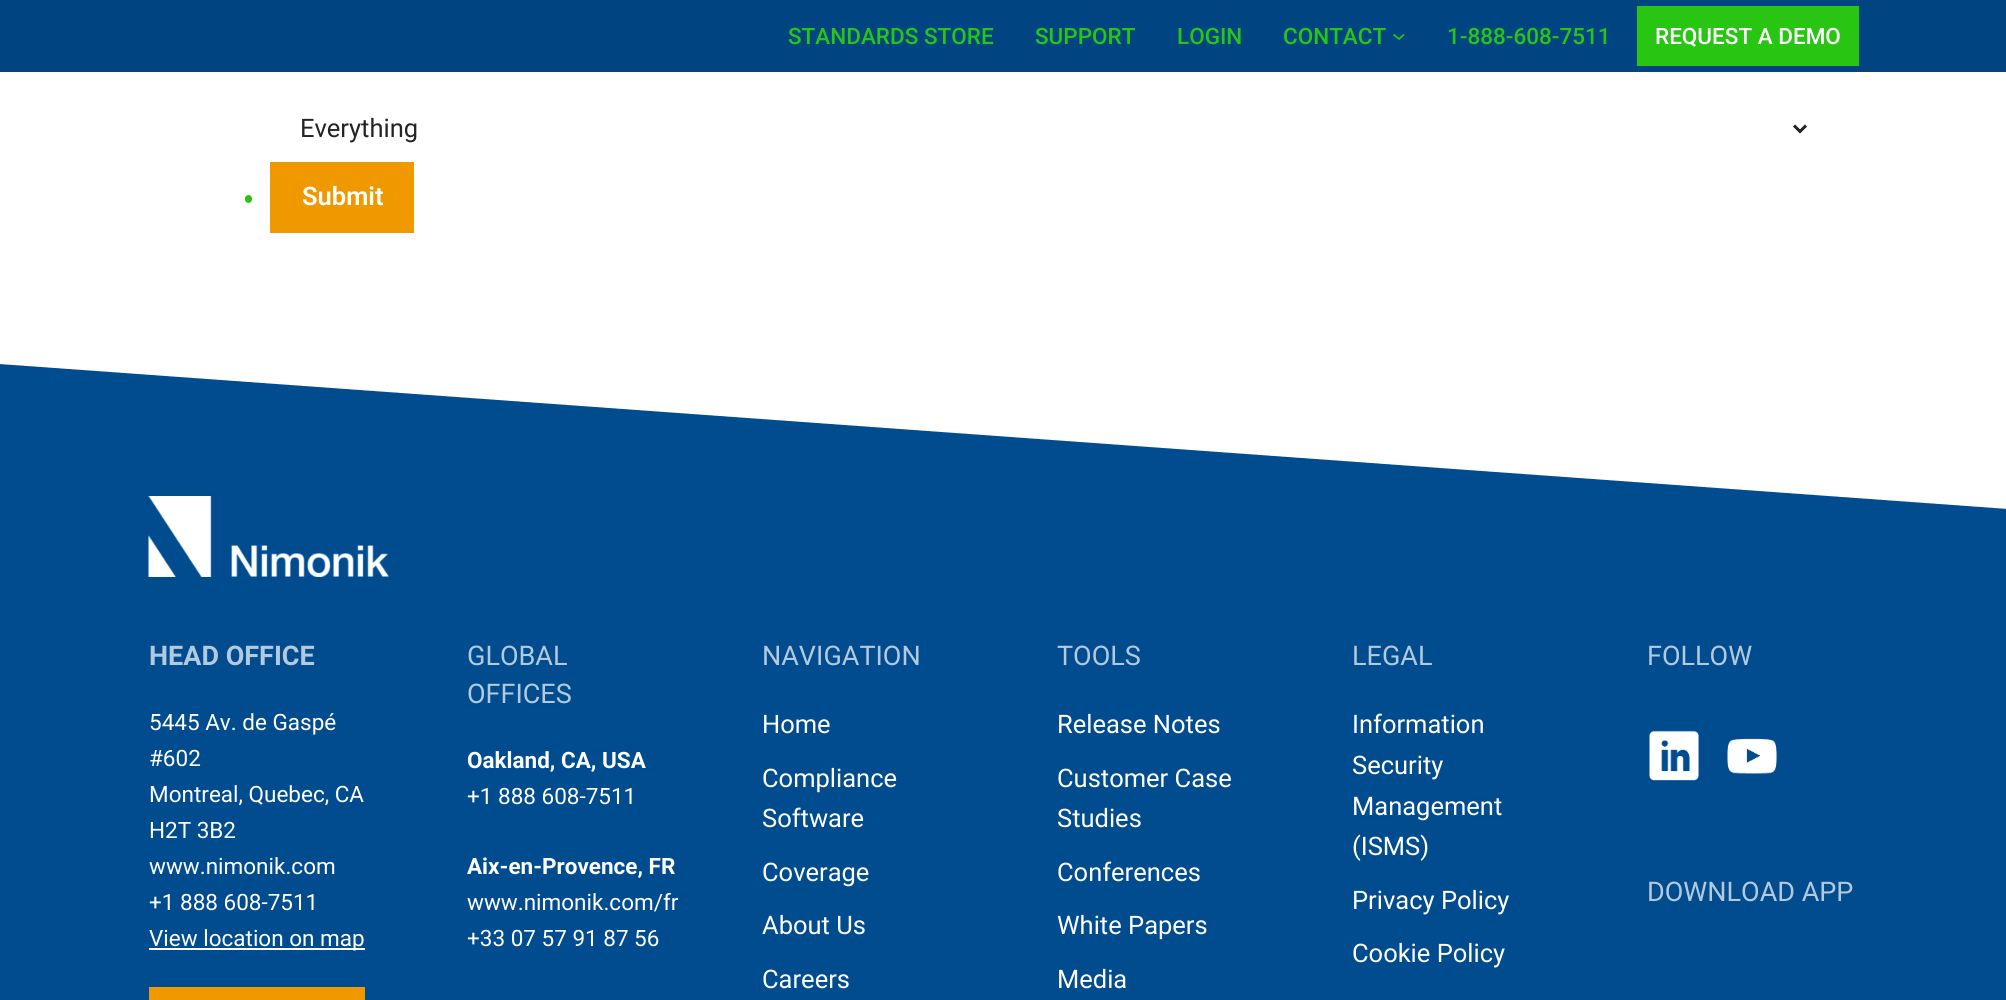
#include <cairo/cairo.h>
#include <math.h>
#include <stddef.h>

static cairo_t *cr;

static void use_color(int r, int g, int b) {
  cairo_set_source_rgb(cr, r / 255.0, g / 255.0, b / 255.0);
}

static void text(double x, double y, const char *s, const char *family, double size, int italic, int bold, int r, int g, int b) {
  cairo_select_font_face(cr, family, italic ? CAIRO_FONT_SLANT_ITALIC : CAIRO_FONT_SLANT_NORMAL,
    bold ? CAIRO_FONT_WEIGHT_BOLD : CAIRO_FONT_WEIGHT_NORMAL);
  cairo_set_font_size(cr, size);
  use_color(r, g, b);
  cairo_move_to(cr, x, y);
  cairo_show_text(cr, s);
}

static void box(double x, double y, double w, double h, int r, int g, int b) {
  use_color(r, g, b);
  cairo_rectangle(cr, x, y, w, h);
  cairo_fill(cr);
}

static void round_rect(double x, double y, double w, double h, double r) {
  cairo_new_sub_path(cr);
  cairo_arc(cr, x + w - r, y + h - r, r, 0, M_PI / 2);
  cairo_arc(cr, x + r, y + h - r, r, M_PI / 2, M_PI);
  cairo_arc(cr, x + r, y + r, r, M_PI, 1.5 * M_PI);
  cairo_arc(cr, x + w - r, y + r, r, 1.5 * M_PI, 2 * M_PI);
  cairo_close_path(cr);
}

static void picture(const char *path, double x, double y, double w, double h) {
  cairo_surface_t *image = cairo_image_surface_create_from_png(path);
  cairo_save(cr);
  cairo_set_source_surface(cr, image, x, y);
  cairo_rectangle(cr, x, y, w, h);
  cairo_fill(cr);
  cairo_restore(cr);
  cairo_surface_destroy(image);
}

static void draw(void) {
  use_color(255, 255, 255);
  cairo_paint(cr);
  box(0, 0, 2006, 72, 0, 69, 129);
  cairo_new_path(cr);
  cairo_move_to(cr, 1393.5, 34.5);
  cairo_line_to(cr, 1399, 39);
  cairo_line_to(cr, 1404, 34.5);
  use_color(40, 198, 19);
  cairo_set_line_width(cr, 1.7);
  cairo_stroke(cr);
  box(1637, 6, 222, 60, 40, 198, 19);
  cairo_new_path(cr);
  cairo_move_to(cr, 1794, 125.5);
  cairo_line_to(cr, 1800, 131.5);
  cairo_line_to(cr, 1806, 125.5);
  use_color(36, 36, 36);
  cairo_set_line_width(cr, 3);
  cairo_stroke(cr);
  use_color(40, 197, 18);
  round_rect(245, 195, 7, 8, 3.5);
  cairo_fill(cr);
  box(270, 162, 144, 71, 240, 152, 0);
  box(0, 364, 2006, 636, 1, 76, 143);
  cairo_save(cr);
  cairo_rectangle(cr, 0, 360, 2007, 150);
  cairo_clip(cr);
  use_color(255, 255, 255);
  cairo_new_path(cr);
  cairo_move_to(cr, -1, 359);
  cairo_line_to(cr, 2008, 359);
  cairo_line_to(cr, 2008, 509);
  cairo_line_to(cr, -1, 364);
  cairo_close_path(cr);
  cairo_fill(cr);
  cairo_restore(cr);
  picture("img_01.png", 148, 496, 241, 81);
  box(149, 948, 216, 2, 255, 255, 255);
  box(149, 987, 216, 13, 240, 152, 0);
  picture("img_02.png", 1649, 730, 50, 51);
  picture("img_03.png", 1727, 738, 50, 36);
  text(788, 44, "STANDARDS STORE", "Roboto Medium", 22.5, 0, 0, 40, 198, 19);
  text(1035, 44, "SUPPORT", "Roboto Medium", 22.5, 0, 0, 40, 198, 19);
  text(1177, 44, "LOGIN", "Roboto Medium", 22.5, 0, 0, 40, 198, 19);
  text(1283, 44, "CONTACT", "Roboto Medium", 22.5, 0, 0, 40, 198, 19);
  text(1447, 44, "1-888-608-7511", "Roboto Medium", 22.5, 0, 0, 40, 198, 19);
  text(1655, 44, "REQUEST A DEMO", "Roboto Medium", 22.5, 0, 0, 255, 255, 255);
  text(300, 137, "Everything", "Roboto", 25.5, 0, 0, 36, 36, 36);
  text(302, 205, "Submit", "Roboto SemiBold", 25.5, 0, 0, 255, 255, 255);
  text(149, 665, "HEAD OFFICE", "Roboto", 27, 0, 1, 179, 201, 221);
  text(149, 730, "5445 Av. de Gaspé", "Roboto", 22.5, 0, 0, 255, 255, 255);
  text(149, 766, "#602", "Roboto", 22.5, 0, 0, 255, 255, 255);
  text(149, 802, "Montreal, Quebec, CA", "Roboto", 22.5, 0, 0, 255, 255, 255);
  text(149, 838, "H2T 3B2", "Roboto", 22.5, 0, 0, 255, 255, 255);
  text(149, 874, "www.nimonik.com", "Roboto", 22.5, 0, 0, 255, 255, 255);
  text(149, 910, "+1 888 608-7511", "Roboto", 22.5, 0, 0, 255, 255, 255);
  text(149, 946, "View location on map", "Roboto", 22.5, 0, 0, 255, 255, 255);
  text(467, 665, "GLOBAL", "Roboto", 27, 0, 0, 179, 201, 221);
  text(467, 703, "OFFICES", "Roboto", 27, 0, 0, 179, 201, 221);
  text(467, 768, "Oakland, CA, USA", "Roboto", 22.5, 0, 1, 255, 255, 255);
  text(467, 804, "+1 888 608-7511", "Roboto", 22.5, 0, 0, 255, 255, 255);
  text(467, 874, "Aix-en-Provence, FR", "Roboto", 22.5, 0, 1, 255, 255, 255);
  text(467, 910, "www.nimonik.com/fr", "Roboto", 22.5, 0, 0, 255, 255, 255);
  text(467, 946, "+33 07 57 91 87 56", "Roboto", 22.5, 0, 0, 255, 255, 255);
  text(762, 665, "NAVIGATION", "Roboto", 27, 0, 0, 179, 201, 221);
  text(762, 733, "Home", "Roboto", 25.5, 0, 0, 255, 255, 255);
  text(762, 787, "Compliance", "Roboto", 25.5, 0, 0, 255, 255, 255);
  text(762, 827, "Software", "Roboto", 25.5, 0, 0, 255, 255, 255);
  text(762, 881, "Coverage", "Roboto", 25.5, 0, 0, 255, 255, 255);
  text(762, 934, "About Us", "Roboto", 25.5, 0, 0, 255, 255, 255);
  text(762, 988, "Careers", "Roboto", 25.5, 0, 0, 255, 255, 255);
  text(1057, 665, "TOOLS", "Roboto", 27, 0, 0, 179, 201, 221);
  text(1057, 733, "Release Notes", "Roboto", 25.5, 0, 0, 255, 255, 255);
  text(1057, 787, "Customer Case", "Roboto", 25.5, 0, 0, 255, 255, 255);
  text(1057, 827, "Studies", "Roboto", 25.5, 0, 0, 255, 255, 255);
  text(1057, 881, "Conferences", "Roboto", 25.5, 0, 0, 255, 255, 255);
  text(1057, 934, "White Papers", "Roboto", 25.5, 0, 0, 255, 255, 255);
  text(1057, 988, "Media", "Roboto", 25.5, 0, 0, 255, 255, 255);
  text(1352, 665, "LEGAL", "Roboto", 27, 0, 0, 179, 201, 221);
  text(1352, 733, "Information", "Roboto", 25.5, 0, 0, 255, 255, 255);
  text(1352, 774, "Security", "Roboto", 25.5, 0, 0, 255, 255, 255);
  text(1352, 815, "Management", "Roboto", 25.5, 0, 0, 255, 255, 255);
  text(1352, 855, "(ISMS)", "Roboto", 25.5, 0, 0, 255, 255, 255);
  text(1352, 909, "Privacy Policy", "Roboto", 25.5, 0, 0, 255, 255, 255);
  text(1352, 962, "Cookie Policy", "Roboto", 25.5, 0, 0, 255, 255, 255);
  text(1647, 665, "FOLLOW", "Roboto", 27, 0, 0, 179, 201, 221);
  text(1647, 901, "DOWNLOAD APP", "Roboto", 27, 0, 0, 179, 201, 221);
}

int main(void) {
  cairo_surface_t *surface = cairo_image_surface_create(CAIRO_FORMAT_RGB24, 2006, 1000);
  cr = cairo_create(surface);
  cairo_font_options_t *options = cairo_font_options_create();
  cairo_font_options_set_hint_metrics(options, CAIRO_HINT_METRICS_OFF);
  cairo_font_options_set_hint_style(options, CAIRO_HINT_STYLE_NONE);
  cairo_set_font_options(cr, options);
  cairo_set_miter_limit(cr, 4);
  draw();
  cairo_surface_write_to_png(surface, "out.png");
  cairo_font_options_destroy(options);
  cairo_destroy(cr);
  cairo_surface_destroy(surface);
  return 0;
}
